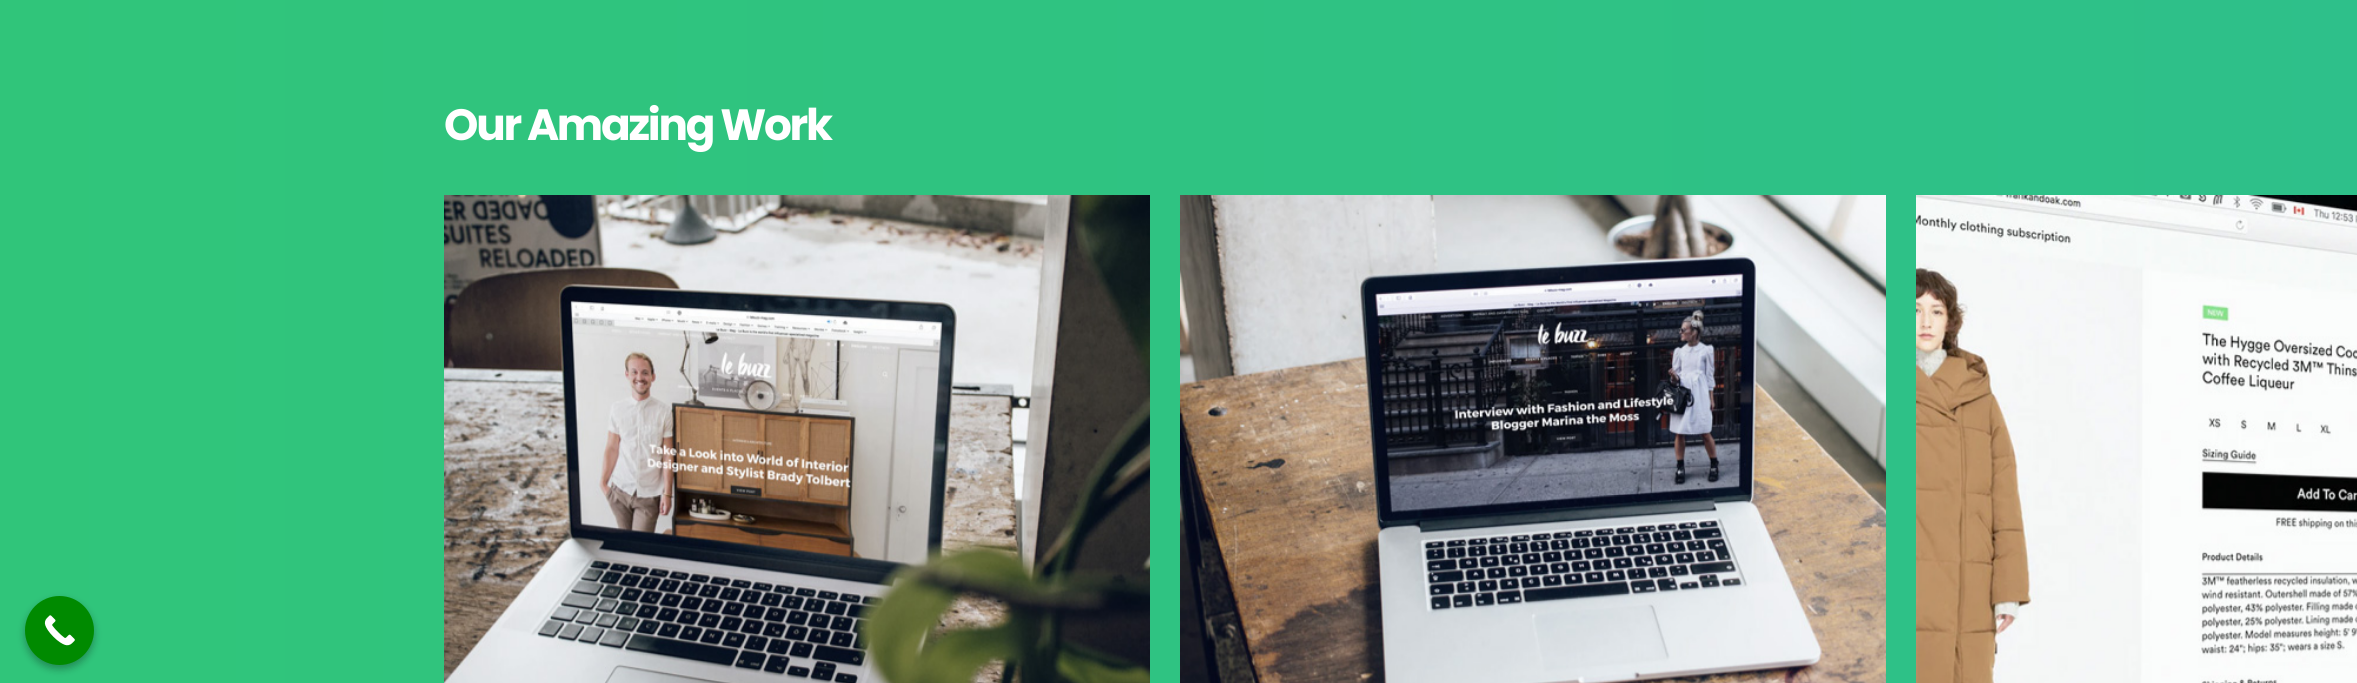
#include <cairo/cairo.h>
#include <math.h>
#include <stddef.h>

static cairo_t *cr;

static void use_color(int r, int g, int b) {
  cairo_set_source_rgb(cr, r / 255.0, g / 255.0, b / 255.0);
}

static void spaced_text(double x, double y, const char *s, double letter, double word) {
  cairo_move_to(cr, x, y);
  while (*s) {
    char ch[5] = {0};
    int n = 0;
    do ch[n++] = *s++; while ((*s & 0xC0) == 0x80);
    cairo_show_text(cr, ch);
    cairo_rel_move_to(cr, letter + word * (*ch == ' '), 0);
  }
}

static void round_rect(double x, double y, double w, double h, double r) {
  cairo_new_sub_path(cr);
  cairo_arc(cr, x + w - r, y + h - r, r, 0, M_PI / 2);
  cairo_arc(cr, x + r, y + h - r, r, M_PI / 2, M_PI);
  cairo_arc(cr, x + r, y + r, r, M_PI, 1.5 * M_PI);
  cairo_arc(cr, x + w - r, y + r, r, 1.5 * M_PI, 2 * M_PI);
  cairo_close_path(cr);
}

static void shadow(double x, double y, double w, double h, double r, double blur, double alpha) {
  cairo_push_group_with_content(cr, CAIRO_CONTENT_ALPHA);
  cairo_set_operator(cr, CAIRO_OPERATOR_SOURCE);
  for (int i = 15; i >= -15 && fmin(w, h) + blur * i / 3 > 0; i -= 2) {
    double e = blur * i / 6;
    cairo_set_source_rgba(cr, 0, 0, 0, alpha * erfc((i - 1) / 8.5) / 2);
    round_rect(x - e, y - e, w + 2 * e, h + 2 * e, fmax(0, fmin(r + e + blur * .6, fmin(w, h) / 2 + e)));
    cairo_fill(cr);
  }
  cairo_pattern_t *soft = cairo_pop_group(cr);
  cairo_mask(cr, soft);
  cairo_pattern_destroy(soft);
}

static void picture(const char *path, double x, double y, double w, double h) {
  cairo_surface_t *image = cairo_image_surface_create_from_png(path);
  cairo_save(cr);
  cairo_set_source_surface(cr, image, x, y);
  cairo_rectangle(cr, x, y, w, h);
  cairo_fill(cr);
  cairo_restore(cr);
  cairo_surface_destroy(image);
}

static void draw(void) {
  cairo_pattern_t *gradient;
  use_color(255, 255, 255);
  cairo_paint(cr);
  gradient = cairo_pattern_create_linear(0, 481, 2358, 481);
  cairo_pattern_add_color_stop_rgba(gradient, 0, 0.188, 0.773, 0.478, 1);
  cairo_pattern_add_color_stop_rgba(gradient, 1, 0.18, 0.753, 0.541, 1);
  cairo_set_source(cr, gradient);
  cairo_pattern_destroy(gradient);
  cairo_rectangle(cr, 0, 0, 2357, 683);
  cairo_fill(cr);
  picture("img_01.png", 444, 195, 706, 488);
  picture("img_02.png", 1180, 195, 706, 488);
  picture("img_03.png", 1916, 195, 441, 488);
  use_color(0, 0, 0);
  shadow(25, 600, 69, 69, 34.5, 4, 0.3);
  use_color(0, 138, 0);
  cairo_arc(cr, 59.5, 630.5, 34.5, 0, 2 * M_PI);
  cairo_fill(cr);
  picture("img_04.png", 44, 615, 31, 31);
  cairo_select_font_face(cr, "Poppins", CAIRO_FONT_SLANT_NORMAL, CAIRO_FONT_WEIGHT_BOLD);
  cairo_set_font_size(cr, 43.75);
  use_color(255, 255, 255);
  spaced_text(444, 140, "Our Amazing Work", -2.25, 0);
}

int main(void) {
  cairo_surface_t *surface = cairo_image_surface_create(CAIRO_FORMAT_RGB24, 2357, 683);
  cr = cairo_create(surface);
  cairo_font_options_t *options = cairo_font_options_create();
  cairo_font_options_set_hint_metrics(options, CAIRO_HINT_METRICS_OFF);
  cairo_font_options_set_hint_style(options, CAIRO_HINT_STYLE_NONE);
  cairo_set_font_options(cr, options);
  cairo_set_miter_limit(cr, 4);
  draw();
  cairo_surface_write_to_png(surface, "out.png");
  cairo_font_options_destroy(options);
  cairo_destroy(cr);
  cairo_surface_destroy(surface);
  return 0;
}
